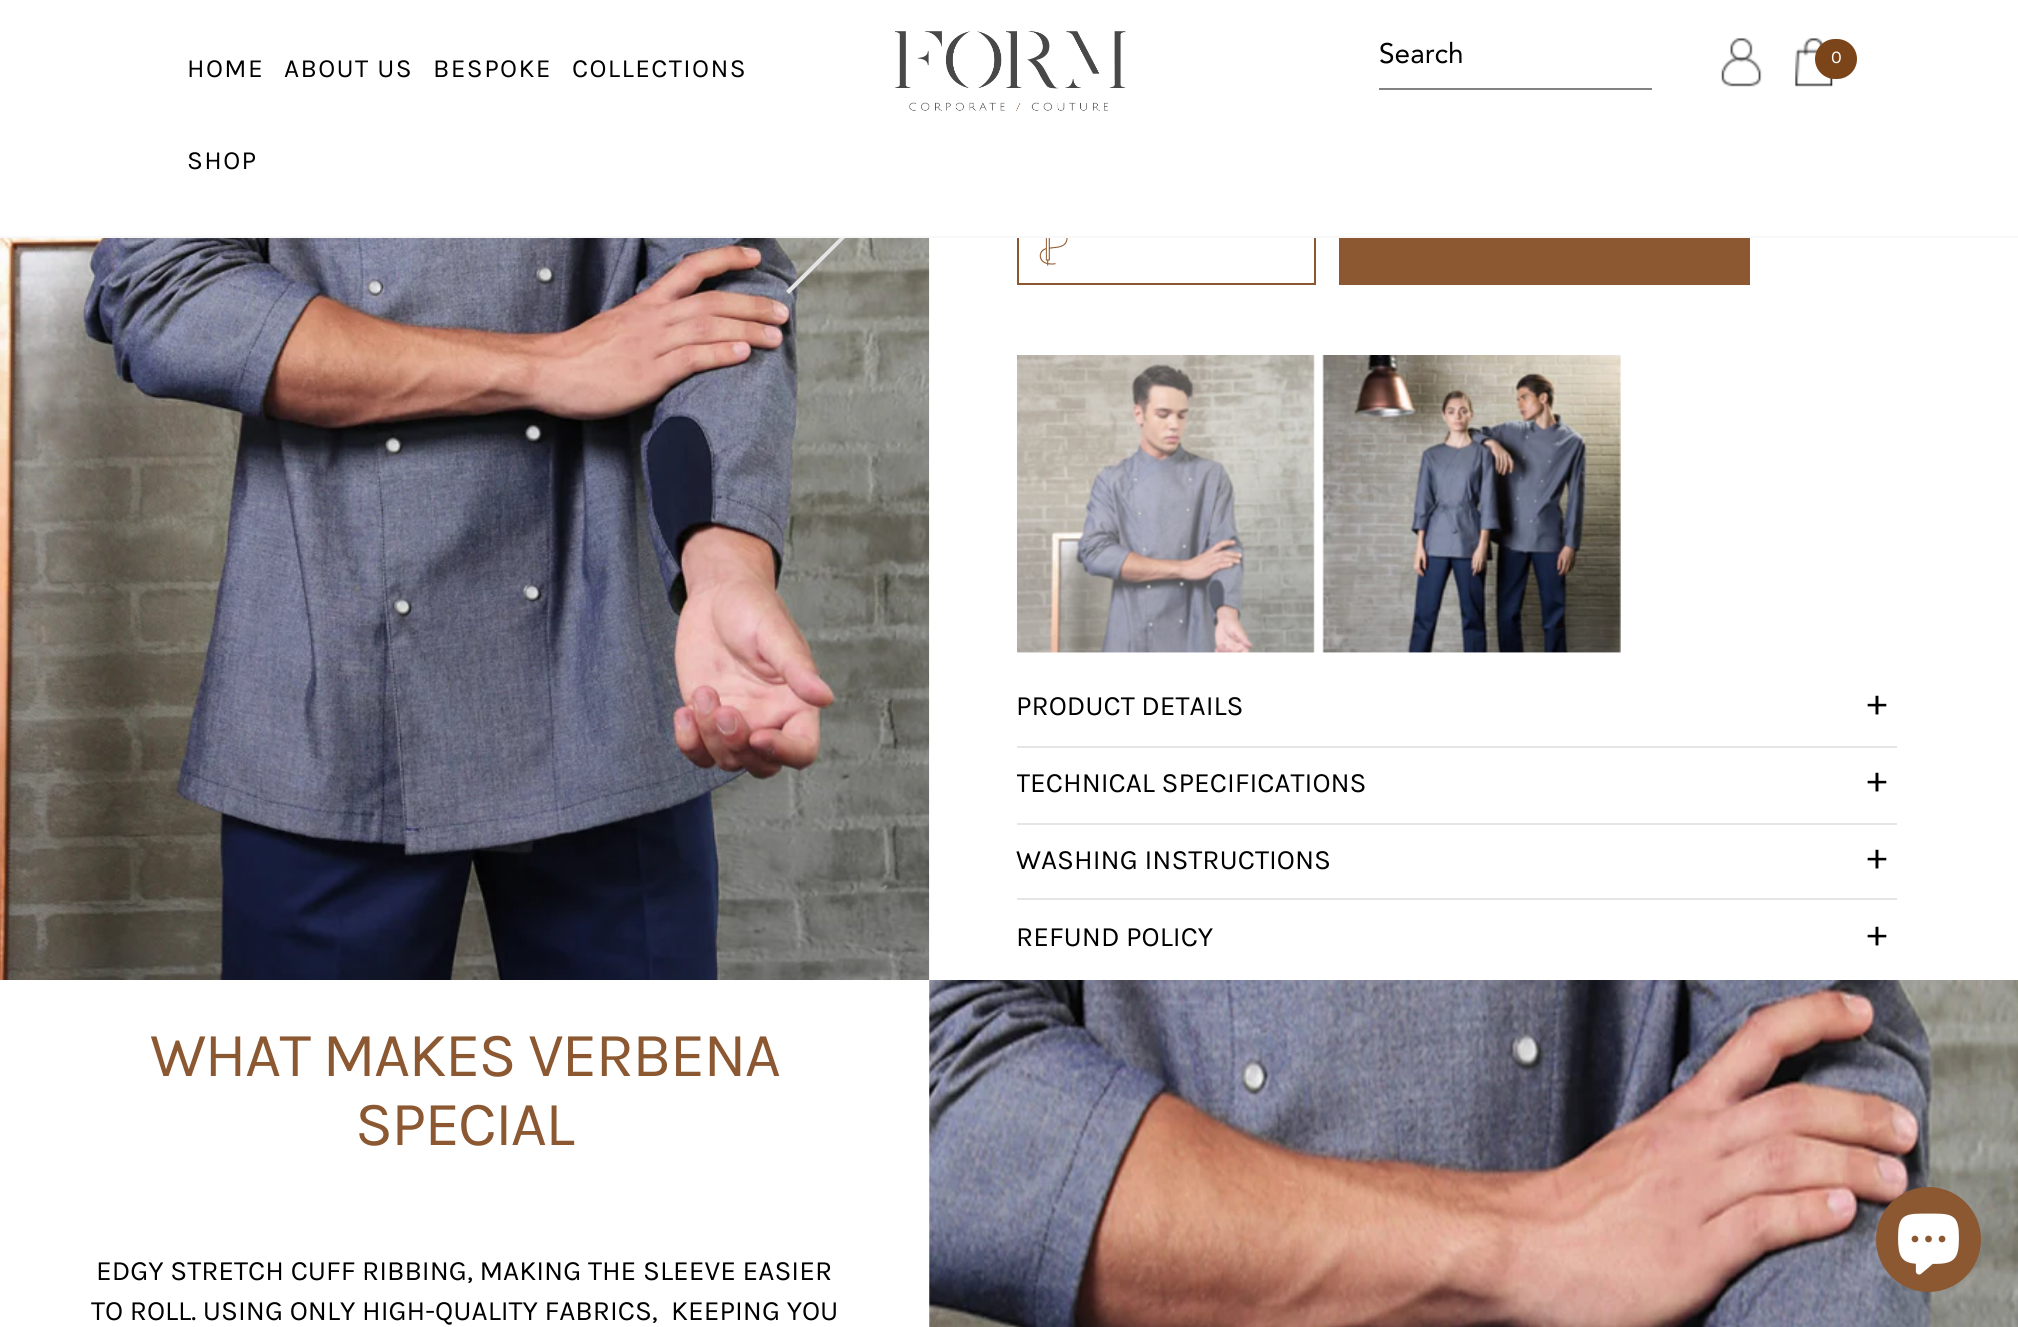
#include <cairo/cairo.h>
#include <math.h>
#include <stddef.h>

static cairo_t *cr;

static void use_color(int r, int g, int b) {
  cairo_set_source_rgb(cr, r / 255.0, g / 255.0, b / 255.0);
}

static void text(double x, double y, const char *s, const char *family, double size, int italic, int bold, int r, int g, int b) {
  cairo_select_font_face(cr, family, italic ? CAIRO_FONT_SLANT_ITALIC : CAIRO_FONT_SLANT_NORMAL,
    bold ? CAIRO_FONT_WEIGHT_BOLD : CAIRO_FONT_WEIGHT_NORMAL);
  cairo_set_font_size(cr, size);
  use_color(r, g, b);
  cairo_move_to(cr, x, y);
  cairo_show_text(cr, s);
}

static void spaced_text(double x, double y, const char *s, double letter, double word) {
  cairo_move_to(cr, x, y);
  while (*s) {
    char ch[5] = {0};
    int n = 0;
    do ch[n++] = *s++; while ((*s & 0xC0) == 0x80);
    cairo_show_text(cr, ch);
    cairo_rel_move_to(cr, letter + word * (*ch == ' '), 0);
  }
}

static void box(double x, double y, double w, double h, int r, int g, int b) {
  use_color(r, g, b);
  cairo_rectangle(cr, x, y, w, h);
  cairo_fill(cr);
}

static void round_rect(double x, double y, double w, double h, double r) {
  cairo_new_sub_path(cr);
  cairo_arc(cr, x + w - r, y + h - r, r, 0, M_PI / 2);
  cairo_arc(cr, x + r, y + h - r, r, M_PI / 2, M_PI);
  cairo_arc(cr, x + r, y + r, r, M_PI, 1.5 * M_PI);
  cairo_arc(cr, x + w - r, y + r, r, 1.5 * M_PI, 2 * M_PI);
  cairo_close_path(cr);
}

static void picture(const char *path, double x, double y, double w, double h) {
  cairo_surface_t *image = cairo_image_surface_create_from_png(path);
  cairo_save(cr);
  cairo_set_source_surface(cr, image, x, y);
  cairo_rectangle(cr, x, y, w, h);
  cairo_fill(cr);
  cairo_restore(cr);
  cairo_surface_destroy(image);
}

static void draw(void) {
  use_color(255, 255, 255);
  cairo_paint(cr);
  picture("img_04.png", 0, 238, 930, 742);
  use_color(229, 229, 229);
  cairo_new_path(cr);
  cairo_move_to(cr, 861, 217);
  cairo_line_to(cr, 863, 220);
  cairo_line_to(cr, 789, 294);
  cairo_line_to(cr, 786, 291);
  cairo_close_path(cr);
  cairo_fill(cr);
  picture("img_05.png", 1039, 238, 29, 28);
  cairo_rectangle(cr, 1018, 199, 297, 85);
  use_color(139, 88, 50);
  cairo_stroke(cr);
  box(842, 198, 474, 38, 255, 255, 255);
  box(0, 236, 2018, 2, 248, 248, 248);
  picture("img_01.png", 895, 31, 231, 80);
  box(1379, 88, 273, 2, 131, 129, 129);
  picture("img_02.png", 1721, 38, 41, 49);
  picture("img_03.png", 1795, 38, 38, 49);
  use_color(124, 69, 25);
  round_rect(1815, 39, 42, 40, 20);
  cairo_fill(cr);
  box(1339, 238, 411, 47, 139, 88, 50);
  picture("img_06.png", 1017, 355, 298, 298);
  picture("img_07.png", 1322, 355, 299, 298);
  box(1017, 746, 880, 2, 229, 229, 229);
  box(1017, 823, 880, 2, 229, 229, 229);
  box(1017, 898, 880, 2, 229, 229, 229);
  picture("img_08.png", 929, 980, 1089, 347);
  use_color(139, 88, 50);
  cairo_arc(cr, 1928.5, 1239.5, 52.5, 0, 2 * M_PI);
  cairo_fill(cr);
  picture("img_09.png", 1898, 1213, 61, 62);
  text(1379, 63, "Search", "Avenir", 28, 0, 0, 0, 0, 0);
  text(1831, 63, "0", "Karla", 18, 0, 0, 255, 255, 255);
  cairo_set_font_size(cr, 26.25);
  use_color(0, 0, 0);
  spaced_text(187, 77, "HOME", 1.4, 0);
  spaced_text(284, 77, "ABOUT US", 1.4, 0);
  spaced_text(433, 77, "BESPOKE", 1.4, 0);
  spaced_text(572, 77, "COLLECTIONS", 1.4, 0);
  spaced_text(187, 169, "SHOP", 1.4, 0);
  text(1016, 715, "PRODUCT DETAILS", "Karla", 28, 0, 0, 0, 0, 0);
  cairo_set_font_size(cr, 38);
  spaced_text(1867, 715, "+", 3, 0);
  cairo_save(cr);
  cairo_rectangle(cr, 1017, 670, 889, 293);
  cairo_clip(cr);
  text(1016, 792, "TECHNICAL SPECIFICATIONS", "Karla", 28, 0, 0, 0, 0, 0);
  cairo_restore(cr);
  spaced_text(1867, 792, "+", 3, 0);
  text(1016, 869, "WASHING INSTRUCTIONS", "Karla", 28, 0, 0, 0, 0, 0);
  cairo_set_font_size(cr, 38);
  spaced_text(1867, 869, "+", 3, 0);
  text(1016, 946, "REFUND POLICY", "Karla", 28, 0, 0, 0, 0, 0);
  cairo_set_font_size(cr, 38);
  spaced_text(1867, 946, "+", 3, 0);
  cairo_set_font_size(cr, 63);
  use_color(139, 88, 50);
  spaced_text(150, 1076, "WHAT MAKES VERBENA", -1.75, 0);
  spaced_text(355, 1145, "SPECIAL", -1.75, 0);
  text(96, 1280, "EDGY STRETCH CUFF RIBBING, MAKING THE SLEEVE EASIER", "Karla", 28, 0, 0, 0, 0, 0);
  text(91, 1320, "TO ROLL. USING ONLY HIGH-QUALITY FABRICS,  KEEPING YOU", "Karla", 28, 0, 0, 0, 0, 0);
}

int main(void) {
  cairo_surface_t *surface = cairo_image_surface_create(CAIRO_FORMAT_RGB24, 2018, 1327);
  cr = cairo_create(surface);
  cairo_font_options_t *options = cairo_font_options_create();
  cairo_font_options_set_hint_metrics(options, CAIRO_HINT_METRICS_OFF);
  cairo_font_options_set_hint_style(options, CAIRO_HINT_STYLE_NONE);
  cairo_set_font_options(cr, options);
  cairo_set_miter_limit(cr, 4);
  draw();
  cairo_surface_write_to_png(surface, "out.png");
  cairo_font_options_destroy(options);
  cairo_destroy(cr);
  cairo_surface_destroy(surface);
  return 0;
}
